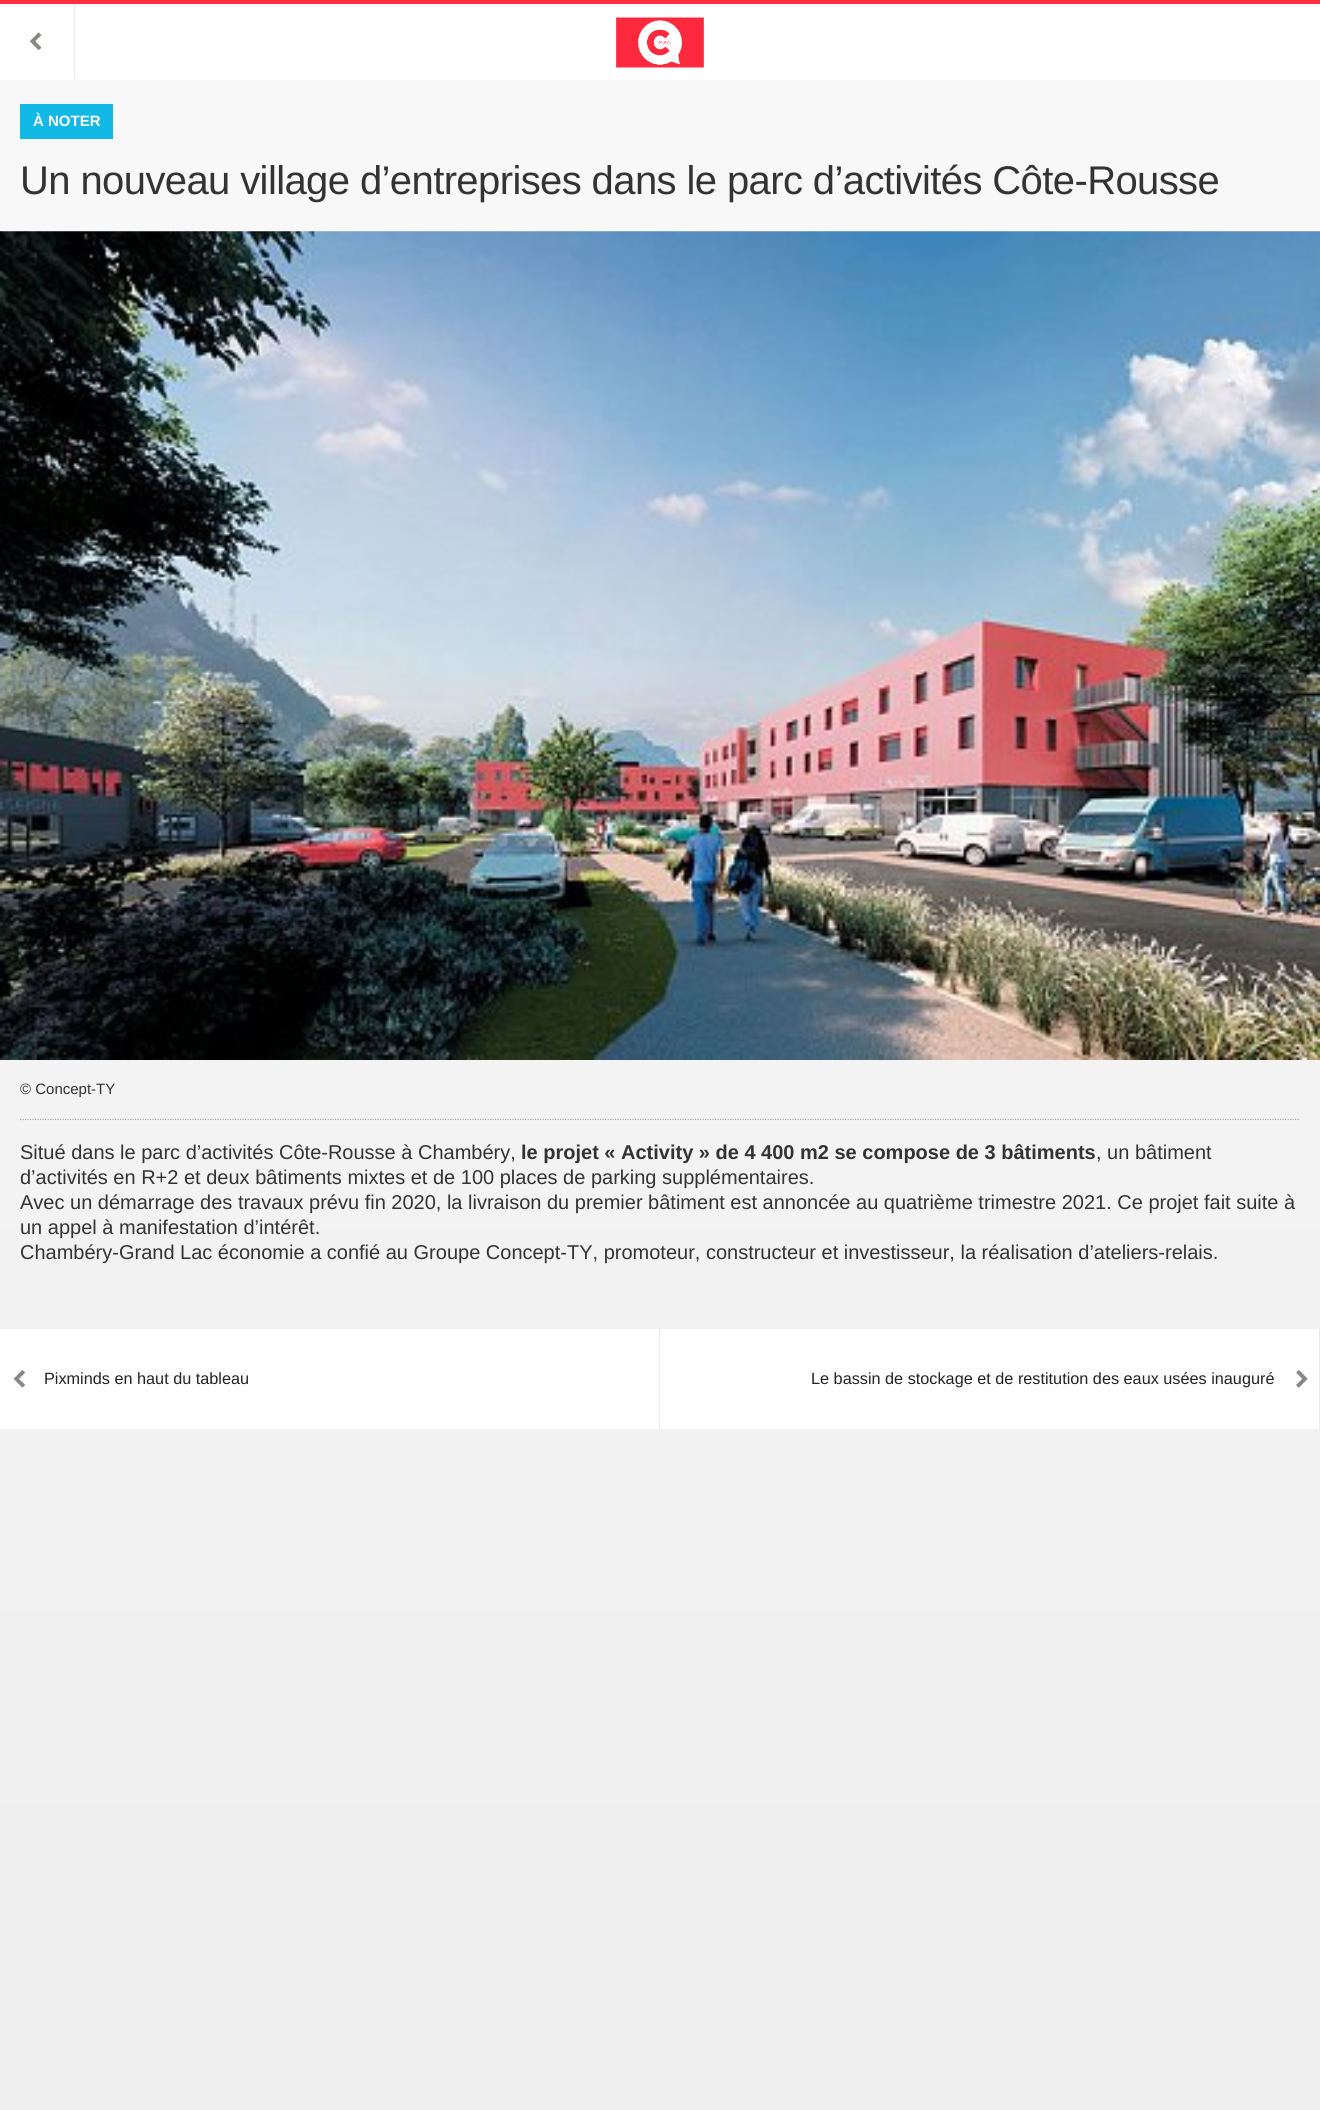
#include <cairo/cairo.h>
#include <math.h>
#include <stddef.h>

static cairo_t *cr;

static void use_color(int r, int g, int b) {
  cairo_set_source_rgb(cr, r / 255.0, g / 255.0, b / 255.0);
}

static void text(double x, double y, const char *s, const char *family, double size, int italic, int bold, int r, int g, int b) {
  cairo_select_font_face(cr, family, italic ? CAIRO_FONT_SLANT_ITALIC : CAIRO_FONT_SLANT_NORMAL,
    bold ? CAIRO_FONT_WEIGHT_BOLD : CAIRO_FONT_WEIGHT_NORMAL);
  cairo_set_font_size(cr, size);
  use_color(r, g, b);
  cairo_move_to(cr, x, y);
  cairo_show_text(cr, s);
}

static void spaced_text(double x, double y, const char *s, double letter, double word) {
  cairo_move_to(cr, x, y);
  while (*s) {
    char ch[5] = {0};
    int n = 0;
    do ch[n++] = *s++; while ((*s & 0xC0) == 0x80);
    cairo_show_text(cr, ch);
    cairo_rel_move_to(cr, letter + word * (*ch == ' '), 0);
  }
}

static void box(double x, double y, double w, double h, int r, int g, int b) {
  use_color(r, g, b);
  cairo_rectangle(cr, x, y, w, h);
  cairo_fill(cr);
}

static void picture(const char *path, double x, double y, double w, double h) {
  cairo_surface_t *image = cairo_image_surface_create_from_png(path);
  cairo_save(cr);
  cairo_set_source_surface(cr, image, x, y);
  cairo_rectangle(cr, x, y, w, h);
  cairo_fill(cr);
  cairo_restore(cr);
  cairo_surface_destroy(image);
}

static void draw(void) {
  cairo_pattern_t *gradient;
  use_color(255, 255, 255);
  cairo_paint(cr);
  gradient = cairo_pattern_create_linear(660, 0, 660, 2110);
  cairo_pattern_add_color_stop_rgba(gradient, 0, 0.976, 0.976, 0.976, 1);
  cairo_pattern_add_color_stop_rgba(gradient, 1, 0.933, 0.933, 0.933, 1);
  cairo_set_source(cr, gradient);
  cairo_pattern_destroy(gradient);
  cairo_rectangle(cr, 0, 80, 1320, 2030);
  cairo_fill(cr);
  box(0, 0, 1320, 4, 252, 45, 67);
  box(74, 4, 1, 75, 235, 235, 235);
  picture("img_01.png", 29, 32, 13, 19);
  picture("img_02.png", 616, 17, 88, 51);
  box(20, 104, 93, 35, 18, 185, 230);
  picture("img_03.png", 0, 231, 1320, 829);
  cairo_new_path(cr);
  cairo_move_to(cr, 20, 1119.5);
  cairo_line_to(cr, 1300, 1119.5);
  use_color(170, 170, 170);
  cairo_set_line_width(cr, 1.2);
  cairo_set_dash(cr, (double[]){1.25, 1.25}, 2, 0);
  cairo_stroke(cr);
  box(0, 1329, 1319, 100, 255, 255, 255);
  box(659, 1329, 1, 100, 235, 235, 235);
  picture("img_04.png", 13, 1370, 13, 18);
  box(1319, 1329, 1, 100, 235, 235, 235);
  picture("img_05.png", 1296, 1370, 12, 18);
  text(33, 126, "À NOTER", "Liberation Sans", 15, 0, 1, 255, 255, 255);
  cairo_select_font_face(cr, "Liberation Sans", CAIRO_FONT_SLANT_NORMAL, CAIRO_FONT_WEIGHT_NORMAL);
  cairo_set_font_size(cr, 40);
  use_color(51, 51, 51);
  spaced_text(20, 194, "Un nouveau village d’entreprises dans le parc d’activités Côte-Rousse", -0.6, 0);
  text(20, 1094, "© Concept-TY", "Liberation Sans", 15, 0, 0, 51, 51, 51);
  text(20, 1159, "Situé dans le parc d’activités Côte-Rousse à Chambéry,", "Liberation Sans", 20, 0, 0, 51, 51, 51);
  text(521, 1159, "le projet « Activity » de 4 400 m2 se compose de 3 bâtiments", "Liberation Sans", 20, 0, 1, 51, 51, 51);
  text(1096, 1159, ", un bâtiment", "Liberation Sans", 20, 0, 0, 51, 51, 51);
  text(20, 1184, "d’activités en R+2 et deux bâtiments mixtes et de 100 places de parking supplémentaires.", "Liberation Sans", 20, 0, 0, 51, 51, 51);
  text(20, 1209, "Avec un démarrage des travaux prévu fin 2020, la livraison du premier bâtiment est annoncée au quatrième trimestre 2021. Ce projet fait suite à", "Liberation Sans", 20, 0, 0, 51, 51, 51);
  text(20, 1234, "un appel à manifestation d’intérêt.", "Liberation Sans", 20, 0, 0, 51, 51, 51);
  text(20, 1259, "Chambéry-Grand Lac économie a confié au Groupe Concept-TY, promoteur, constructeur et investisseur, la réalisation d’ateliers-relais.", "Liberation Sans", 20, 0, 0, 51, 51, 51);
  text(44, 1384, "Pixminds en haut du tableau", "Liberation Sans", 16.25, 0, 0, 34, 34, 34);
  text(811, 1384, "Le bassin de stockage et de restitution des eaux usées inauguré", "Liberation Sans", 16.25, 0, 0, 34, 34, 34);
}

int main(void) {
  cairo_surface_t *surface = cairo_image_surface_create(CAIRO_FORMAT_RGB24, 1320, 2110);
  cr = cairo_create(surface);
  cairo_font_options_t *options = cairo_font_options_create();
  cairo_font_options_set_hint_metrics(options, CAIRO_HINT_METRICS_OFF);
  cairo_font_options_set_hint_style(options, CAIRO_HINT_STYLE_NONE);
  cairo_set_font_options(cr, options);
  cairo_set_miter_limit(cr, 4);
  draw();
  cairo_surface_write_to_png(surface, "out.png");
  cairo_font_options_destroy(options);
  cairo_destroy(cr);
  cairo_surface_destroy(surface);
  return 0;
}
